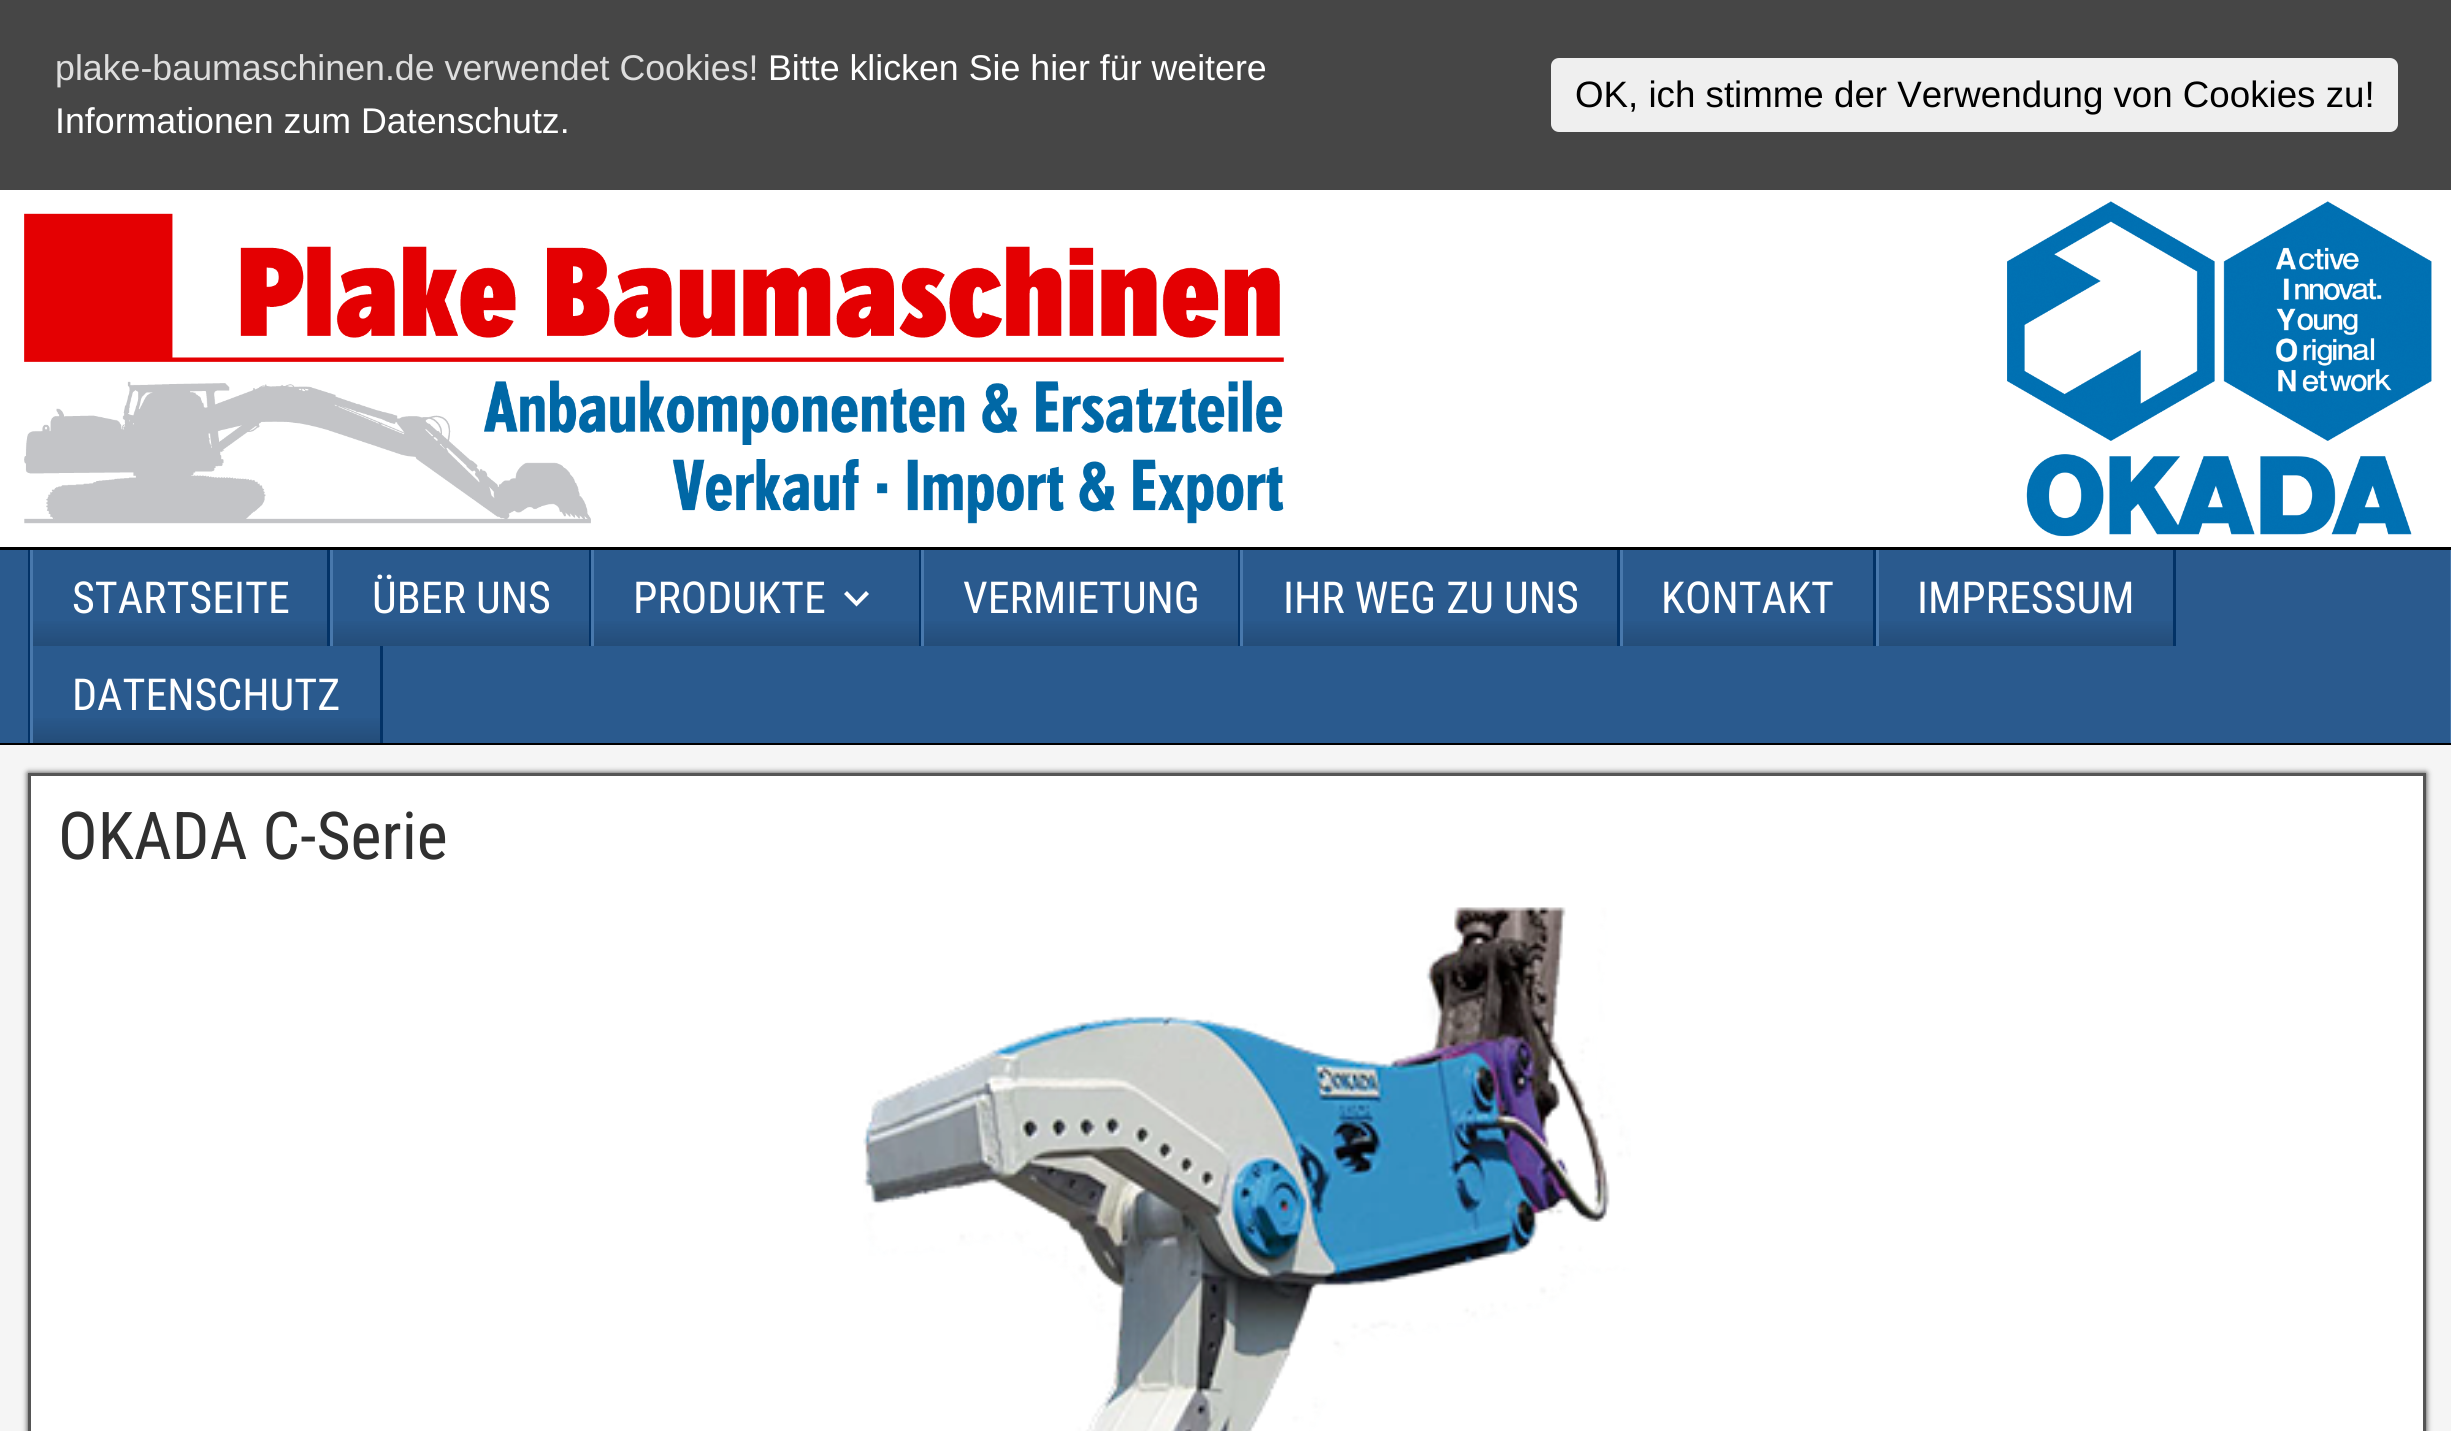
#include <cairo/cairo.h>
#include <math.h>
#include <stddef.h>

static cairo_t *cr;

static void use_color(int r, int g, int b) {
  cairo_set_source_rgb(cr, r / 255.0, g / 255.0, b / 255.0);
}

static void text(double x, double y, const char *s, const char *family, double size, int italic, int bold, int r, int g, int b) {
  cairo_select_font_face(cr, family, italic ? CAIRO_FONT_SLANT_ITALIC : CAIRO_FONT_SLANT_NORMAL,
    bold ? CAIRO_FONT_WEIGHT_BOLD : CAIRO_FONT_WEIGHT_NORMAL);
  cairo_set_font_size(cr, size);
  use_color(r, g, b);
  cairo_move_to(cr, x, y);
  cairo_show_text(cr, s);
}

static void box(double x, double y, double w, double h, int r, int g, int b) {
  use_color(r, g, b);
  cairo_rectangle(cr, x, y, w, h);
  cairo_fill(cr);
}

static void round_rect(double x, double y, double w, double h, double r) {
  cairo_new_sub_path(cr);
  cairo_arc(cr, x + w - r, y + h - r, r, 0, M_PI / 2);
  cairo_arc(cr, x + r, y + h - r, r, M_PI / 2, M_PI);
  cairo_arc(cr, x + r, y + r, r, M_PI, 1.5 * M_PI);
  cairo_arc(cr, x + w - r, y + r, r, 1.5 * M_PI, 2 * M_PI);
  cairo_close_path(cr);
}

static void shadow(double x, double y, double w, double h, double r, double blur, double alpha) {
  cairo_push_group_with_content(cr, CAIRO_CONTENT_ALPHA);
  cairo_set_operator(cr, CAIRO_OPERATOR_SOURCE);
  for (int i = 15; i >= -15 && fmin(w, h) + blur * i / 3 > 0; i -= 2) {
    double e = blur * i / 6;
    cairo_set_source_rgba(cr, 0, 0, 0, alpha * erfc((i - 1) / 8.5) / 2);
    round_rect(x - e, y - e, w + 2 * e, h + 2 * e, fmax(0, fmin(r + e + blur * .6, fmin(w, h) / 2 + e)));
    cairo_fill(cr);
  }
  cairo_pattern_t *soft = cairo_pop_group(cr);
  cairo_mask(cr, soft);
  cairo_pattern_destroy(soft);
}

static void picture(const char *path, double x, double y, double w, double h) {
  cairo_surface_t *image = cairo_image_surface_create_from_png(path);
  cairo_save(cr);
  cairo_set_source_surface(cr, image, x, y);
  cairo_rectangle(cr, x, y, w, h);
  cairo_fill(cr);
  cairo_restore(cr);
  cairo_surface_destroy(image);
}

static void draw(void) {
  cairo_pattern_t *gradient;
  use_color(255, 255, 255);
  cairo_paint(cr);
  box(0, 0, 2451, 190, 70, 70, 70);
  use_color(239, 239, 239);
  round_rect(1551, 58, 847, 74, 8);
  cairo_fill(cr);
  box(0, 547, 2451, 3, 0, 0, 0);
  picture("img_01.png", 24, 201, 2408, 336);
  box(0, 550, 2450, 193, 42, 90, 142);
  box(0, 743, 2451, 2, 0, 0, 0);
  box(2450, 550, 1, 193, 72, 120, 172);
  box(28, 550, 2, 193, 2, 50, 102);
  gradient = cairo_pattern_create_linear(180, 550, 180, 646);
  cairo_pattern_add_color_stop_rgba(gradient, 0.7, 0, 0, 0, 0);
  cairo_pattern_add_color_stop_rgba(gradient, 1, 0, 0, 0, 0.15);
  cairo_set_source(cr, gradient);
  cairo_pattern_destroy(gradient);
  cairo_rectangle(cr, 33, 621, 294, 25);
  cairo_fill(cr);
  box(327, 550, 3, 96, 2, 50, 102);
  box(30, 550, 3, 193, 72, 120, 172);
  gradient = cairo_pattern_create_linear(461, 550, 461, 646);
  cairo_pattern_add_color_stop_rgba(gradient, 0.7, 0.165, 0.353, 0.557, 1);
  cairo_pattern_add_color_stop_rgba(gradient, 1, 0.141, 0.302, 0.475, 1);
  cairo_set_source(cr, gradient);
  cairo_pattern_destroy(gradient);
  cairo_rectangle(cr, 333, 621, 256, 25);
  cairo_fill(cr);
  box(589, 550, 2, 96, 2, 50, 102);
  box(330, 550, 3, 96, 72, 120, 172);
  gradient = cairo_pattern_create_linear(756, 550, 756, 646);
  cairo_pattern_add_color_stop_rgba(gradient, 0.7, 0, 0, 0, 0);
  cairo_pattern_add_color_stop_rgba(gradient, 1, 0, 0, 0, 0.15);
  cairo_set_source(cr, gradient);
  cairo_pattern_destroy(gradient);
  cairo_rectangle(cr, 594, 621, 325, 25);
  cairo_fill(cr);
  box(919, 550, 2, 96, 2, 50, 102);
  box(591, 550, 3, 96, 72, 120, 172);
  use_color(255, 255, 255);
  cairo_new_path(cr);
  cairo_move_to(cr, 869, 594);
  cairo_line_to(cr, 856.5, 606.5);
  cairo_line_to(cr, 844, 594);
  cairo_line_to(cr, 847, 591);
  cairo_line_to(cr, 856.5, 601);
  cairo_line_to(cr, 866, 591);
  cairo_close_path(cr);
  cairo_fill(cr);
  gradient = cairo_pattern_create_linear(1081, 550, 1081, 646);
  cairo_pattern_add_color_stop_rgba(gradient, 0.7, 0, 0, 0, 0);
  cairo_pattern_add_color_stop_rgba(gradient, 1, 0, 0, 0, 0.15);
  cairo_set_source(cr, gradient);
  cairo_pattern_destroy(gradient);
  cairo_rectangle(cr, 924, 621, 314, 25);
  cairo_fill(cr);
  box(1238, 550, 2, 96, 2, 50, 102);
  box(921, 550, 3, 96, 72, 120, 172);
  gradient = cairo_pattern_create_linear(1430, 550, 1430, 646);
  cairo_pattern_add_color_stop_rgba(gradient, 0.7, 0, 0, 0, 0);
  cairo_pattern_add_color_stop_rgba(gradient, 1, 0, 0, 0, 0.15);
  cairo_set_source(cr, gradient);
  cairo_pattern_destroy(gradient);
  cairo_rectangle(cr, 1243, 621, 374, 25);
  cairo_fill(cr);
  box(1617, 550, 3, 96, 2, 50, 102);
  box(1240, 550, 3, 96, 72, 120, 172);
  gradient = cairo_pattern_create_linear(1748, 550, 1748, 646);
  cairo_pattern_add_color_stop_rgba(gradient, 0.7, 0.165, 0.353, 0.557, 1);
  cairo_pattern_add_color_stop_rgba(gradient, 1, 0.141, 0.302, 0.475, 1);
  cairo_set_source(cr, gradient);
  cairo_pattern_destroy(gradient);
  cairo_rectangle(cr, 1623, 621, 250, 25);
  cairo_fill(cr);
  box(1873, 550, 3, 96, 2, 50, 102);
  box(1620, 550, 3, 96, 72, 120, 172);
  gradient = cairo_pattern_create_linear(2025, 550, 2025, 646);
  cairo_pattern_add_color_stop_rgba(gradient, 0.7, 0.165, 0.353, 0.557, 1);
  cairo_pattern_add_color_stop_rgba(gradient, 1, 0.141, 0.302, 0.475, 1);
  cairo_set_source(cr, gradient);
  cairo_pattern_destroy(gradient);
  cairo_rectangle(cr, 1879, 621, 294, 25);
  cairo_fill(cr);
  box(2173, 550, 3, 96, 2, 50, 102);
  box(1876, 550, 3, 96, 72, 120, 172);
  gradient = cairo_pattern_create_linear(206, 646, 206, 743);
  cairo_pattern_add_color_stop_rgba(gradient, 0.7, 0, 0, 0, 0);
  cairo_pattern_add_color_stop_rgba(gradient, 1, 0, 0, 0, 0.15);
  cairo_set_source(cr, gradient);
  cairo_pattern_destroy(gradient);
  cairo_rectangle(cr, 33, 718, 347, 25);
  cairo_fill(cr);
  box(380, 646, 3, 97, 2, 50, 102);
  box(0, 745, 2451, 686, 245, 245, 245);
  use_color(51, 51, 51);
  shadow(28, 773, 2398, 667, 0, 3, 1);
  use_color(255, 255, 255);
  cairo_rectangle(cr, 29.5, 774.5, 2395, 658);
  cairo_fill_preserve(cr);
  use_color(85, 85, 85);
  cairo_set_line_width(cr, 3);
  cairo_stroke(cr);
  picture("img_02.png", 863, 907, 768, 524);
  text(55, 80, "plake-baumaschinen.de verwendet Cookies!", "Liberation Sans", 35.75, 0, 0, 221, 221, 221);
  text(768, 80, "Bitte klicken Sie hier für weitere", "Liberation Sans", 35.75, 0, 0, 255, 255, 255);
  text(55, 133, "Informationen zum Datenschutz.", "Liberation Sans", 35.75, 0, 0, 255, 255, 255);
  text(1575, 107, "OK, ich stimme der Verwendung von Cookies zu!", "Liberation Sans", 36.7, 0, 0, 0, 0, 0);
  text(72, 613, "STARTSEITE", "Roboto Condensed", 44, 0, 0, 255, 255, 255);
  text(372, 613, "ÜBER UNS", "Roboto Condensed", 44, 0, 0, 255, 255, 255);
  text(633, 613, "PRODUKTE", "Roboto Condensed", 44, 0, 0, 255, 255, 255);
  text(963, 613, "VERMIETUNG", "Roboto Condensed", 44, 0, 0, 255, 255, 255);
  text(1283, 613, "IHR WEG ZU UNS", "Roboto Condensed", 44, 0, 0, 255, 255, 255);
  text(1661, 613, "KONTAKT", "Roboto Condensed", 44, 0, 0, 255, 255, 255);
  text(1917, 613, "IMPRESSUM", "Roboto Condensed", 44, 0, 0, 255, 255, 255);
  text(72, 710, "DATENSCHUTZ", "Roboto Condensed", 44, 0, 0, 255, 255, 255);
  text(58, 859, "OKADA C-Serie", "Roboto Condensed", 66, 0, 0, 48, 48, 48);
}

int main(void) {
  cairo_surface_t *surface = cairo_image_surface_create(CAIRO_FORMAT_RGB24, 2451, 1431);
  cr = cairo_create(surface);
  cairo_font_options_t *options = cairo_font_options_create();
  cairo_font_options_set_hint_metrics(options, CAIRO_HINT_METRICS_OFF);
  cairo_font_options_set_hint_style(options, CAIRO_HINT_STYLE_NONE);
  cairo_set_font_options(cr, options);
  cairo_set_miter_limit(cr, 4);
  draw();
  cairo_surface_write_to_png(surface, "out.png");
  cairo_font_options_destroy(options);
  cairo_destroy(cr);
  cairo_surface_destroy(surface);
  return 0;
}
